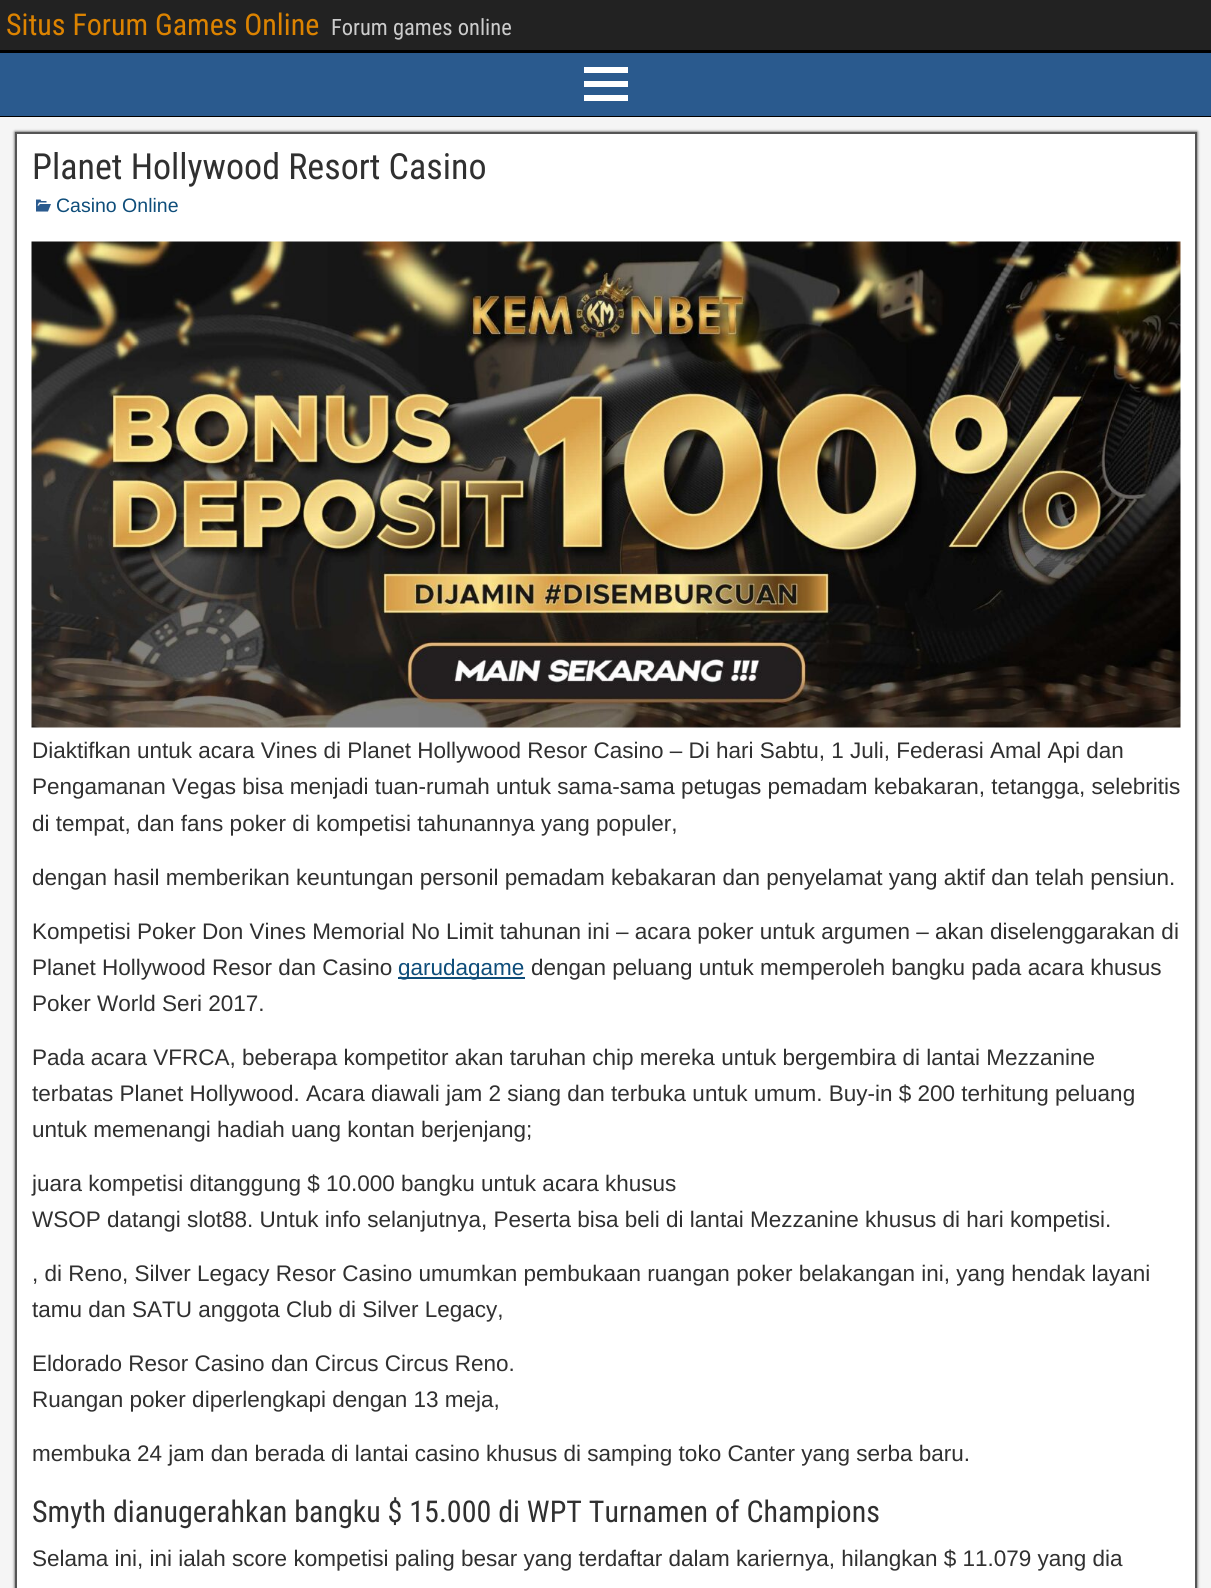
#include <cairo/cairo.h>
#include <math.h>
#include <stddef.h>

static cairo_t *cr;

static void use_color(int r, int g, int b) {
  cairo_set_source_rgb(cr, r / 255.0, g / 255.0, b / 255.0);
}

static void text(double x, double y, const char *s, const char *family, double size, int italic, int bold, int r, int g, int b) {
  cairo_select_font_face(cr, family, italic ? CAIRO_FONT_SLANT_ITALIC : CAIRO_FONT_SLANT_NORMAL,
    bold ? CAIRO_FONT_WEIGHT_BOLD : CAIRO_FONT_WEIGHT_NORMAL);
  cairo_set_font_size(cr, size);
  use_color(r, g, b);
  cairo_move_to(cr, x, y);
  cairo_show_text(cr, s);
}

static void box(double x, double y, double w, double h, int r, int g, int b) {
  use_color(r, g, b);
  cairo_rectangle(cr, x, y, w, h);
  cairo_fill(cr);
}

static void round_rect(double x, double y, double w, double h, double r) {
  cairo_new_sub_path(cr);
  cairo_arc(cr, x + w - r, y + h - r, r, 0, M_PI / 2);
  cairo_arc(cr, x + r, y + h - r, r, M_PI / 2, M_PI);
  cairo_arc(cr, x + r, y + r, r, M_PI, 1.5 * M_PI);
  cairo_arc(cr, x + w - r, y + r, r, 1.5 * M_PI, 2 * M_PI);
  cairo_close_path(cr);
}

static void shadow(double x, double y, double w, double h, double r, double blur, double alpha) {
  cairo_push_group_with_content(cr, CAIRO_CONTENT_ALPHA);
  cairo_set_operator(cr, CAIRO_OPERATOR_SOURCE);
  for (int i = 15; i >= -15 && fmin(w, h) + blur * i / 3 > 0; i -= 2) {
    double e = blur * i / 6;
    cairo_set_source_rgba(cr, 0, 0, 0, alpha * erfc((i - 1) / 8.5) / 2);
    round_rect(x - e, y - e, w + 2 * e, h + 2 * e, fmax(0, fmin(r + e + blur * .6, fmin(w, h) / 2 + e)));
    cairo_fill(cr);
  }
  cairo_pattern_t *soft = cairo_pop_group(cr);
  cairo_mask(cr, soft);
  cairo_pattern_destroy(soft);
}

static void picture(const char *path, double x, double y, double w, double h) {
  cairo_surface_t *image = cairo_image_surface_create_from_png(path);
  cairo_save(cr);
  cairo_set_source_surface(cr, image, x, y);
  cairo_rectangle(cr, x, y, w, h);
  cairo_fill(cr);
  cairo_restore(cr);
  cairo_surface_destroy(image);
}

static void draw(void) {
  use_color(34, 34, 34);
  cairo_paint(cr);
  box(0, 50, 1211, 3, 0, 0, 0);
  box(0, 53, 1211, 63, 42, 90, 142);
  box(0, 116, 1211, 1, 0, 0, 0);
  use_color(255, 255, 255);
  cairo_new_path(cr);
  cairo_move_to(cr, 584, 101);
  cairo_line_to(cr, 584, 95);
  cairo_line_to(cr, 628, 95);
  cairo_line_to(cr, 628, 101);
  cairo_close_path(cr);
  cairo_move_to(cr, 584, 67);
  cairo_line_to(cr, 628, 67);
  cairo_line_to(cr, 628, 73);
  cairo_line_to(cr, 584, 73);
  cairo_close_path(cr);
  cairo_move_to(cr, 584, 87);
  cairo_line_to(cr, 584, 81);
  cairo_line_to(cr, 628, 81);
  cairo_line_to(cr, 628, 87);
  cairo_close_path(cr);
  cairo_fill(cr);
  box(0, 117, 1211, 1471, 245, 245, 245);
  use_color(51, 51, 51);
  shadow(15, 132, 1182, 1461, 0, 1.5, 1);
  use_color(255, 255, 255);
  cairo_rectangle(cr, 16, 133, 1180, 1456);
  cairo_fill_preserve(cr);
  use_color(85, 85, 85);
  cairo_stroke(cr);
  picture("img_01.png", 36, 199, 15, 13);
  picture("img_02.png", 31, 241, 1150, 487);
  box(398, 977, 127, 2, 14, 77, 122);
  text(6, 35, "Situs Forum Games Online", "Roboto Condensed", 30, 0, 0, 220, 131, 0);
  text(331, 35, "Forum games online", "Roboto Condensed", 22.5, 0, 0, 204, 204, 204);
  text(32, 179, "Planet Hollywood Resort Casino", "Roboto Condensed", 36, 0, 0, 48, 48, 48);
  text(56, 212, "Casino Online", "Liberation Sans", 19.5, 0, 0, 14, 77, 122);
  text(32, 758, "Diaktifkan untuk acara Vines di Planet Hollywood Resor Casino – Di hari Sabtu, 1 Juli, Federasi Amal Api dan", "Arimo", 22.5, 0, 0, 48, 48, 48);
  text(32, 794, "Pengamanan Vegas bisa menjadi tuan-rumah untuk sama-sama petugas pemadam kebakaran, tetangga, selebritis", "Arimo", 22.5, 0, 0, 48, 48, 48);
  text(32, 831, "di tempat, dan fans poker di kompetisi tahunannya yang populer,", "Arimo", 22.5, 0, 0, 48, 48, 48);
  text(32, 885, "dengan hasil memberikan keuntungan personil pemadam kebakaran dan penyelamat yang aktif dan telah pensiun.", "Arimo", 22.5, 0, 0, 48, 48, 48);
  text(32, 939, "Kompetisi Poker Don Vines Memorial No Limit tahunan ini – acara poker untuk argumen – akan diselenggarakan di", "Arimo", 22.5, 0, 0, 48, 48, 48);
  text(32, 975, "Planet Hollywood Resor dan Casino", "Arimo", 22.5, 0, 0, 48, 48, 48);
  text(398, 975, "garudagame", "Arimo", 22.5, 0, 0, 14, 77, 122);
  text(531, 975, "dengan peluang untuk memperoleh bangku pada acara khusus", "Arimo", 22.5, 0, 0, 48, 48, 48);
  text(32, 1011, "Poker World Seri 2017.", "Arimo", 22.5, 0, 0, 48, 48, 48);
  text(32, 1065, "Pada acara VFRCA, beberapa kompetitor akan taruhan chip mereka untuk bergembira di lantai Mezzanine", "Arimo", 22.5, 0, 0, 48, 48, 48);
  text(32, 1101, "terbatas Planet Hollywood. Acara diawali jam 2 siang dan terbuka untuk umum. Buy-in $ 200 terhitung peluang", "Arimo", 22.5, 0, 0, 48, 48, 48);
  text(32, 1137, "untuk memenangi hadiah uang kontan berjenjang;", "Arimo", 22.5, 0, 0, 48, 48, 48);
  text(32, 1191, "juara kompetisi ditanggung $ 10.000 bangku untuk acara khusus", "Arimo", 22.5, 0, 0, 48, 48, 48);
  text(32, 1227, "WSOP datangi slot88. Untuk info selanjutnya, Peserta bisa beli di lantai Mezzanine khusus di hari kompetisi.", "Arimo", 22.5, 0, 0, 48, 48, 48);
  text(32, 1281, ", di Reno, Silver Legacy Resor Casino umumkan pembukaan ruangan poker belakangan ini, yang hendak layani", "Arimo", 22.5, 0, 0, 48, 48, 48);
  text(32, 1317, "tamu dan SATU anggota Club di Silver Legacy,", "Arimo", 22.5, 0, 0, 48, 48, 48);
  text(32, 1371, "Eldorado Resor Casino dan Circus Circus Reno.", "Arimo", 22.5, 0, 0, 48, 48, 48);
  text(32, 1407, "Ruangan poker diperlengkapi dengan 13 meja,", "Arimo", 22.5, 0, 0, 48, 48, 48);
  text(32, 1461, "membuka 24 jam dan berada di lantai casino khusus di samping toko Canter yang serba baru.", "Arimo", 22.5, 0, 0, 48, 48, 48);
  text(32, 1522, "Smyth dianugerahkan bangku $ 15.000 di WPT Turnamen of Champions", "Roboto Condensed", 30, 0, 0, 48, 48, 48);
  text(32, 1566, "Selama ini, ini ialah score kompetisi paling besar yang terdaftar dalam kariernya, hilangkan $ 11.079 yang dia", "Arimo", 22.5, 0, 0, 48, 48, 48);
}

int main(void) {
  cairo_surface_t *surface = cairo_image_surface_create(CAIRO_FORMAT_RGB24, 1211, 1588);
  cr = cairo_create(surface);
  cairo_font_options_t *options = cairo_font_options_create();
  cairo_font_options_set_hint_metrics(options, CAIRO_HINT_METRICS_OFF);
  cairo_font_options_set_hint_style(options, CAIRO_HINT_STYLE_NONE);
  cairo_set_font_options(cr, options);
  cairo_set_miter_limit(cr, 4);
  draw();
  cairo_surface_write_to_png(surface, "out.png");
  cairo_font_options_destroy(options);
  cairo_destroy(cr);
  cairo_surface_destroy(surface);
  return 0;
}
